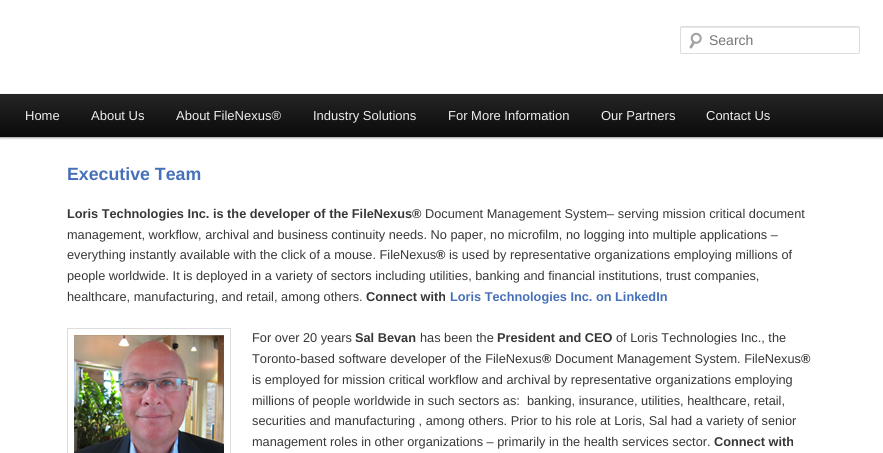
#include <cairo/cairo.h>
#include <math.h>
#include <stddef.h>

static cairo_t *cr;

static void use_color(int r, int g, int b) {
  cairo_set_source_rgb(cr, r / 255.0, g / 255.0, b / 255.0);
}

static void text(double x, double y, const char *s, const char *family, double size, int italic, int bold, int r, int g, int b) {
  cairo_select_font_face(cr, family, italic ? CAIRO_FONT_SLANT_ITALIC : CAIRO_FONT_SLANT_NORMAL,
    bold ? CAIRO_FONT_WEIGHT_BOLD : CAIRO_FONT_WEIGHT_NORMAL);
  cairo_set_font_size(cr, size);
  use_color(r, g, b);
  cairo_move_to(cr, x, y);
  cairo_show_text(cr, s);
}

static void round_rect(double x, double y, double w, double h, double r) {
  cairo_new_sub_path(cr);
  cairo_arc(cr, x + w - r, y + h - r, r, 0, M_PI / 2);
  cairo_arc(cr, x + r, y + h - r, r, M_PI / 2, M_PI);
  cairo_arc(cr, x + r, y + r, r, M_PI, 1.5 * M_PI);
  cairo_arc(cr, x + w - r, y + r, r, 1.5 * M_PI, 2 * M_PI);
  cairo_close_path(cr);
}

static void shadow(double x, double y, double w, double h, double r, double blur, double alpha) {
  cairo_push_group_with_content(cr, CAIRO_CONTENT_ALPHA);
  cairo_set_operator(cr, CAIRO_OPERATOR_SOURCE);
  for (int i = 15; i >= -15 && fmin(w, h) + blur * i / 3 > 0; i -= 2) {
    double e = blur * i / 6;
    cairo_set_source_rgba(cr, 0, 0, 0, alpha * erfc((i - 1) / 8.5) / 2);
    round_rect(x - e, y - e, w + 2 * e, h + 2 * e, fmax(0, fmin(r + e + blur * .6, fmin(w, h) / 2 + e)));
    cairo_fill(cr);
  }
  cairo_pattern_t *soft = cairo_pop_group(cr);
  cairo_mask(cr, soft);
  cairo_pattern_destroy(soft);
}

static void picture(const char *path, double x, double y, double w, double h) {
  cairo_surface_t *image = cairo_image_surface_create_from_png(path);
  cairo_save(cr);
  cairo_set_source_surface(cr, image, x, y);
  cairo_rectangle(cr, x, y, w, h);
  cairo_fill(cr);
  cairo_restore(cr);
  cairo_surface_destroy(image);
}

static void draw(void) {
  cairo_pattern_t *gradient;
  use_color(255, 255, 255);
  cairo_paint(cr);
  round_rect(680.5, 26.5, 179, 27, 1.5);
  use_color(221, 221, 221);
  cairo_set_line_width(cr, 1);
  cairo_stroke(cr);
  use_color(255, 255, 255);
  round_rect(680, 26, 180, 28, 2);
  cairo_fill(cr);
  picture("img_01.png", 689, 32, 13, 17);
  use_color(230, 230, 230);
  cairo_new_path(cr);
  cairo_move_to(cr, 682, 28);
  cairo_line_to(cr, 858, 28);
  cairo_line_to(cr, 859, 28);
  cairo_curve_to(cr, 859, 28, 859, 27, 858, 27);
  cairo_line_to(cr, 682, 27);
  cairo_curve_to(cr, 681, 27, 681, 28, 681, 29);
  cairo_close_path(cr);
  cairo_fill(cr);
  round_rect(680.5, 26.5, 179, 27, 1.5);
  use_color(221, 221, 221);
  cairo_stroke(cr);
  use_color(0, 0, 0);
  shadow(0, 95, 883, 43, 0, 1, 0.4);
  gradient = cairo_pattern_create_linear(442, 94, 442, 137);
  cairo_pattern_add_color_stop_rgba(gradient, 0, 0.145, 0.145, 0.145, 1);
  cairo_pattern_add_color_stop_rgba(gradient, 1, 0.039, 0.039, 0.039, 1);
  cairo_set_source(cr, gradient);
  cairo_pattern_destroy(gradient);
  cairo_rectangle(cr, 0, 94, 883, 43);
  cairo_fill(cr);
  cairo_rectangle(cr, 67.5, 328.5, 163, 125);
  use_color(221, 221, 221);
  cairo_stroke(cr);
  picture("img_02.png", 74, 335, 150, 118);
  text(709, 45, "Search", "Liberation Sans", 14, 0, 0, 117, 117, 117);
  text(25, 120, "Home", "Liberation Sans", 13, 0, 0, 238, 238, 238);
  text(91, 120, "About Us", "Liberation Sans", 13, 0, 0, 238, 238, 238);
  text(176, 120, "About FileNexus®", "Liberation Sans", 13, 0, 0, 238, 238, 238);
  text(313, 120, "Industry Solutions", "Liberation Sans", 13, 0, 0, 238, 238, 238);
  text(448, 120, "For More Information", "Liberation Sans", 13, 0, 0, 238, 238, 238);
  text(601, 120, "Our Partners", "Liberation Sans", 13, 0, 0, 238, 238, 238);
  text(706, 120, "Contact Us", "Liberation Sans", 13, 0, 0, 238, 238, 238);
  text(67, 180, "Executive Team", "Liberation Sans", 17.75, 0, 1, 70, 112, 184);
  text(67, 218, "Loris Technologies Inc. is the developer of the FileNexus®", "Liberation Sans", 12.75, 0, 1, 55, 55, 55);
  text(425, 218, "Document Management System– serving mission critical document", "Liberation Sans", 12.75, 0, 0, 55, 55, 55);
  text(67, 239, "management, workflow, archival and business continuity needs. No paper, no microfilm, no logging into multiple applications –", "Liberation Sans", 12.75, 0, 0, 55, 55, 55);
  text(67, 259, "everything instantly available with the click of a mouse. FileNexus", "Liberation Sans", 12.75, 0, 0, 55, 55, 55);
  text(436, 259, "®", "Liberation Sans", 12.75, 0, 1, 55, 55, 55);
  text(449, 259, "is used by representative organizations employing millions of", "Liberation Sans", 12.75, 0, 0, 55, 55, 55);
  text(67, 280, "people worldwide. It is deployed in a variety of sectors including utilities, banking and financial institutions, trust companies,", "Liberation Sans", 12.75, 0, 0, 55, 55, 55);
  text(67, 301, "healthcare, manufacturing, and retail, among others.", "Liberation Sans", 12.75, 0, 0, 55, 55, 55);
  text(366, 301, "Connect with", "Liberation Sans", 12.75, 0, 1, 55, 55, 55);
  text(450, 301, "Loris Technologies Inc. on LinkedIn", "Liberation Sans", 12.75, 0, 1, 70, 112, 184);
  text(252, 342, "For over 20 years", "Liberation Sans", 12.75, 0, 0, 55, 55, 55);
  text(355, 342, "Sal Bevan", "Liberation Sans", 12.75, 0, 1, 55, 55, 55);
  text(420, 342, "has been the", "Liberation Sans", 12.75, 0, 0, 55, 55, 55);
  text(497, 342, "President and CEO", "Liberation Sans", 12.75, 0, 1, 55, 55, 55);
  text(616, 342, "of Loris Technologies Inc., the", "Liberation Sans", 12.75, 0, 0, 55, 55, 55);
  text(252, 363, "Toronto-based software developer of the FileNexus", "Liberation Sans", 12.75, 0, 0, 55, 55, 55);
  text(542, 363, "®", "Liberation Sans", 12.75, 0, 1, 55, 55, 55);
  text(555, 363, "Document Management System. FileNexus", "Liberation Sans", 12.75, 0, 0, 55, 55, 55);
  text(801, 363, "®", "Liberation Sans", 12.75, 0, 1, 55, 55, 55);
  text(252, 384, "is employed for mission critical workflow and archival by representative organizations employing", "Liberation Sans", 12.75, 0, 0, 55, 55, 55);
  text(252, 405, "millions of people worldwide in such sectors as:  banking, insurance, utilities, healthcare, retail,", "Liberation Sans", 12.75, 0, 0, 55, 55, 55);
  text(252, 425, "securities and manufacturing , among others. Prior to his role at Loris, Sal had a variety of senior", "Liberation Sans", 12.75, 0, 0, 55, 55, 55);
  text(252, 446, "management roles in other organizations – primarily in the health services sector.", "Liberation Sans", 12.75, 0, 0, 55, 55, 55);
  text(714, 446, "Connect with", "Liberation Sans", 12.75, 0, 1, 55, 55, 55);
}

int main(void) {
  cairo_surface_t *surface = cairo_image_surface_create(CAIRO_FORMAT_RGB24, 883, 453);
  cr = cairo_create(surface);
  cairo_font_options_t *options = cairo_font_options_create();
  cairo_font_options_set_hint_metrics(options, CAIRO_HINT_METRICS_OFF);
  cairo_font_options_set_hint_style(options, CAIRO_HINT_STYLE_NONE);
  cairo_set_font_options(cr, options);
  cairo_set_miter_limit(cr, 4);
  draw();
  cairo_surface_write_to_png(surface, "out.png");
  cairo_font_options_destroy(options);
  cairo_destroy(cr);
  cairo_surface_destroy(surface);
  return 0;
}
